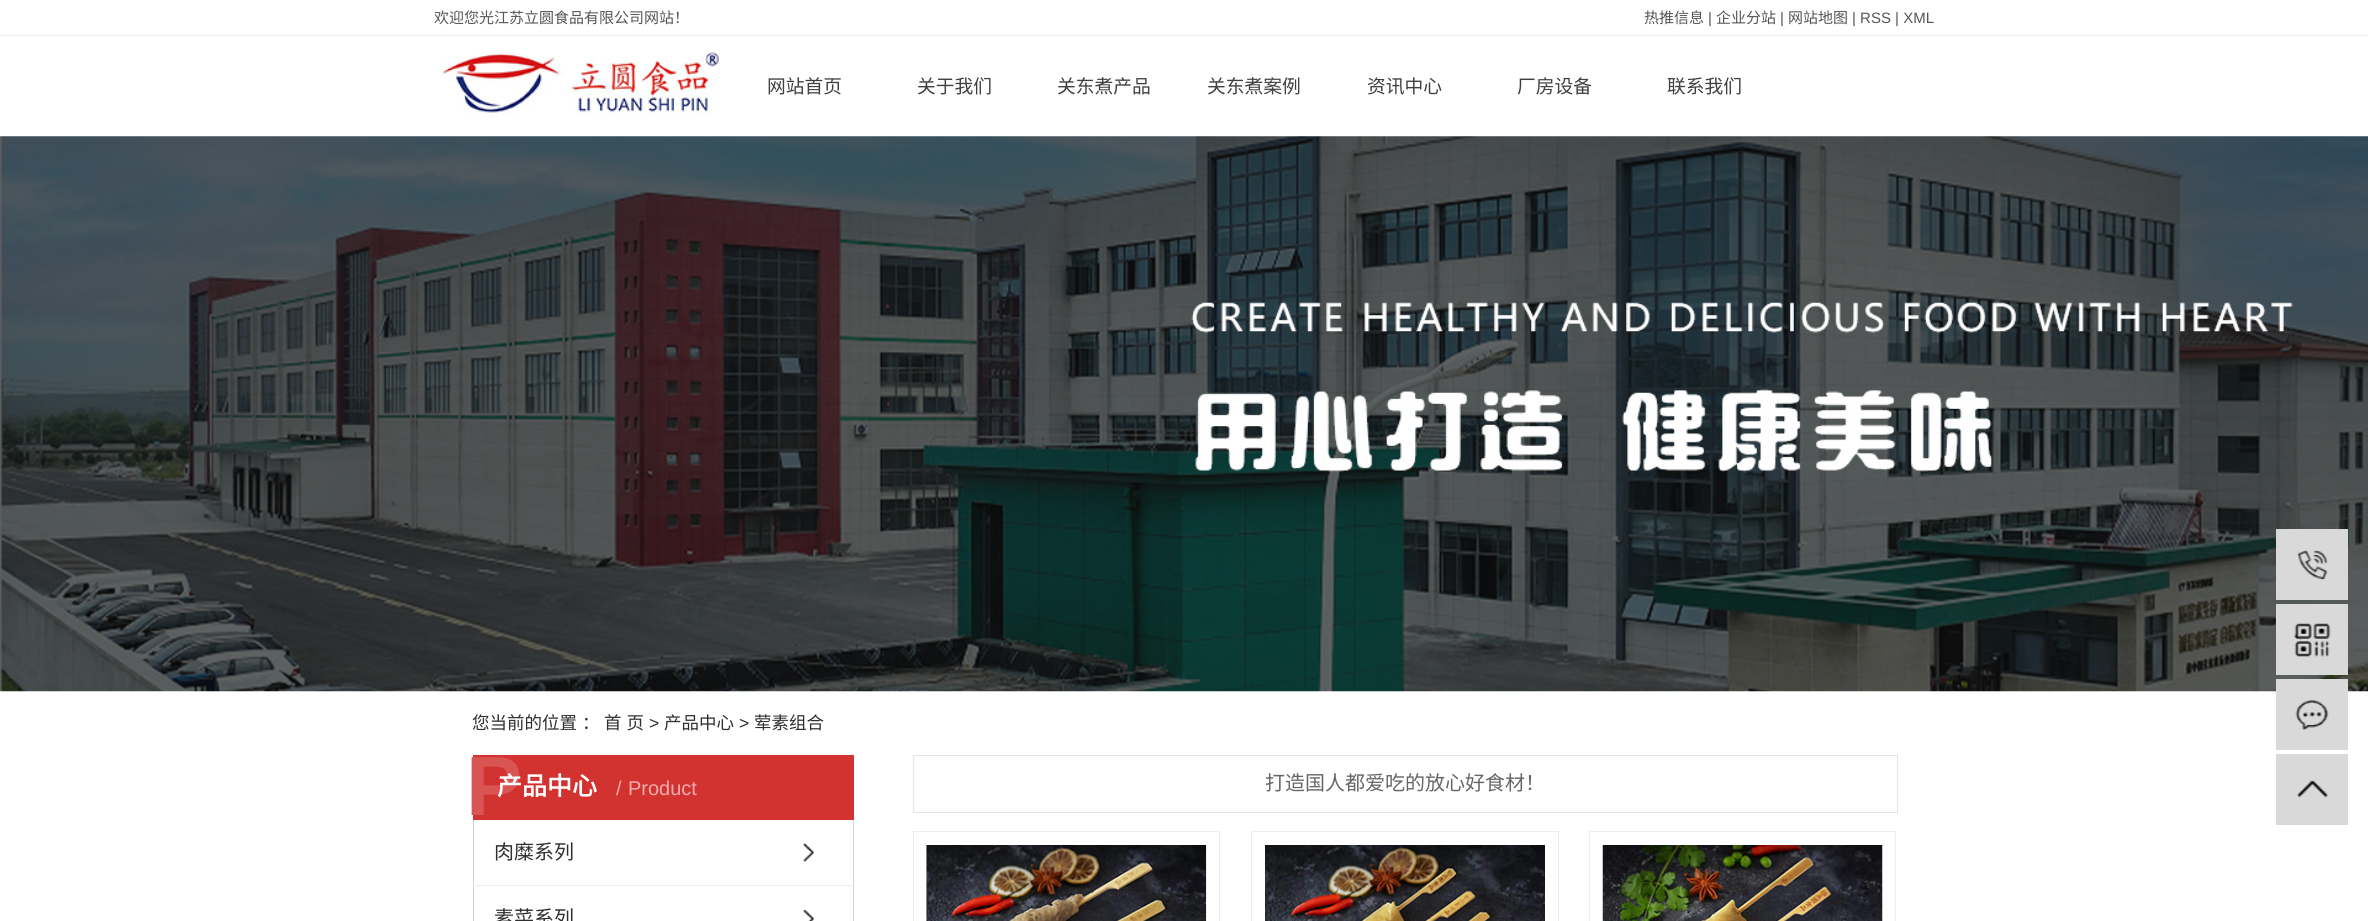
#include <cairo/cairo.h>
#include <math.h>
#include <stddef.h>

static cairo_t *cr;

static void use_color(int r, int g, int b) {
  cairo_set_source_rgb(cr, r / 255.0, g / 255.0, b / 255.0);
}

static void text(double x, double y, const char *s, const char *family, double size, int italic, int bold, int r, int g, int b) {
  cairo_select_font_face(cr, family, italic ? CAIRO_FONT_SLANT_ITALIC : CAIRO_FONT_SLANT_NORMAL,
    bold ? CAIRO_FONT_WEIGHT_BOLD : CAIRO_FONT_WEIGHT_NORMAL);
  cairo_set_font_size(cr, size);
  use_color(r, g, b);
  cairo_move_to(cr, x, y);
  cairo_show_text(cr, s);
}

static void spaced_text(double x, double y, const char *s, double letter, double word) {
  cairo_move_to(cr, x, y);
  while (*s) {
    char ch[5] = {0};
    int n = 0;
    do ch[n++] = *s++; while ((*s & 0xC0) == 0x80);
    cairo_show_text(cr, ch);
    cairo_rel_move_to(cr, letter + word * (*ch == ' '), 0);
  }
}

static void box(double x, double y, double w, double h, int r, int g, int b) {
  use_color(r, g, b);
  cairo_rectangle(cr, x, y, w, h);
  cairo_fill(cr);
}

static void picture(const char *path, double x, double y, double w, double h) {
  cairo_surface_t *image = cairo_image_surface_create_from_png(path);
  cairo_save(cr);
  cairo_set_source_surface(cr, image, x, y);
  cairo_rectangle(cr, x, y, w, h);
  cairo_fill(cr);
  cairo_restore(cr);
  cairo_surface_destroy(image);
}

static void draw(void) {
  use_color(255, 255, 255);
  cairo_paint(cr);
  box(0, 35, 2368, 1, 238, 238, 238);
  picture("img_01.png", 441, 52, 279, 64);
  picture("img_02.png", 0, 136, 2368, 556);
  box(2276, 529, 72, 71, 217, 217, 217);
  picture("img_03.png", 2297, 550, 31, 30);
  box(2276, 604, 72, 71, 217, 217, 217);
  picture("img_04.png", 2294, 623, 37, 34);
  box(2276, 679, 72, 71, 217, 217, 217);
  picture("img_05.png", 2295, 699, 34, 32);
  box(2276, 754, 72, 71, 217, 217, 217);
  picture("img_06.png", 2297, 780, 32, 18);
  box(473, 755, 381, 65, 210, 51, 49);
  box(853, 820, 1, 101, 210, 210, 210);
  box(473, 820, 1, 101, 210, 210, 210);
  box(473, 885, 381, 1, 238, 238, 238);
  picture("img_07.png", 803, 843, 11, 19);
  picture("img_08.png", 803, 909, 11, 12);
  cairo_rectangle(cr, 913.5, 755.5, 984, 57);
  use_color(229, 229, 229);
  cairo_set_line_width(cr, 1);
  cairo_stroke(cr);
  cairo_rectangle(cr, 913.5, 831.5, 306, 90);
  use_color(238, 238, 238);
  cairo_stroke(cr);
  picture("img_09.png", 926, 845, 281, 76);
  cairo_rectangle(cr, 1251.5, 831.5, 307, 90);
  cairo_stroke(cr);
  picture("img_10.png", 1265, 845, 280, 76);
  cairo_rectangle(cr, 1589.5, 831.5, 306, 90);
  cairo_stroke(cr);
  picture("img_11.png", 1602, 845, 281, 76);
  text(434, 23, "欢迎您光江苏立圆食品有限公司网站！", "Noto Sans CJK SC", 15, 0, 0, 85, 85, 85);
  text(1644, 23, "热推信息", "Noto Sans CJK SC", 15, 0, 0, 85, 85, 85);
  text(1708, 23, "|", "Liberation Sans", 15, 0, 0, 85, 85, 85);
  text(1716, 23, "企业分站", "Noto Sans CJK SC", 15, 0, 0, 85, 85, 85);
  text(1780, 23, "|", "Liberation Sans", 15, 0, 0, 85, 85, 85);
  text(1788, 23, "网站地图", "Noto Sans CJK SC", 15, 0, 0, 85, 85, 85);
  text(1852, 23, "| RSS | XML", "Liberation Sans", 15, 0, 0, 85, 85, 85);
  text(767, 93, "网站首页", "Noto Sans CJK SC", 18.75, 0, 0, 64, 64, 64);
  text(917, 93, "关于我们", "Noto Sans CJK SC", 18.75, 0, 0, 64, 64, 64);
  text(1057, 93, "关东煮产品", "Noto Sans CJK SC", 18.75, 0, 0, 64, 64, 64);
  text(1207, 93, "关东煮案例", "Noto Sans CJK SC", 18.75, 0, 0, 64, 64, 64);
  text(1367, 93, "资讯中心", "Noto Sans CJK SC", 18.75, 0, 0, 64, 64, 64);
  text(1517, 93, "厂房设备", "Noto Sans CJK SC", 18.75, 0, 0, 64, 64, 64);
  text(1667, 93, "联系我们", "Noto Sans CJK SC", 18.75, 0, 0, 64, 64, 64);
  cairo_set_font_size(cr, 17.5);
  use_color(47, 47, 47);
  spaced_text(472, 729, "您当前的位置 ：", 0, 1);
  spaced_text(604, 729, "首 页", 0, 1);
  text(649, 729, ">", "Liberation Sans", 17.5, 0, 0, 47, 47, 47);
  text(664, 729, "产品中心", "Noto Sans CJK SC", 17.5, 0, 0, 47, 47, 47);
  text(739, 729, ">", "Liberation Sans", 17.5, 0, 0, 47, 47, 47);
  text(754, 729, "荤素组合", "Noto Sans CJK SC", 17.5, 0, 0, 47, 47, 47);
  text(466, 815, "P", "Liberation Sans", 84, 0, 1, 217, 85, 83);
  text(497, 795, "产品中心", "Noto Sans CJK SC", 25, 0, 1, 255, 255, 255);
  text(616, 795, "/", "Liberation Sans", 20, 0, 0, 237, 173, 173);
  text(628, 795, "Product", "Liberation Sans", 20, 0, 0, 237, 173, 173);
  text(494, 859, "肉糜系列", "Noto Sans CJK SC", 20, 0, 0, 47, 47, 47);
  text(494, 925, "素菜系列", "Noto Sans CJK SC", 20, 0, 0, 47, 47, 47);
  text(1265, 790, "打造国人都爱吃的放心好食材！", "Noto Sans CJK SC", 20, 0, 0, 102, 102, 102);
}

int main(void) {
  cairo_surface_t *surface = cairo_image_surface_create(CAIRO_FORMAT_RGB24, 2368, 921);
  cr = cairo_create(surface);
  cairo_font_options_t *options = cairo_font_options_create();
  cairo_font_options_set_hint_metrics(options, CAIRO_HINT_METRICS_OFF);
  cairo_font_options_set_hint_style(options, CAIRO_HINT_STYLE_NONE);
  cairo_set_font_options(cr, options);
  cairo_set_miter_limit(cr, 4);
  draw();
  cairo_surface_write_to_png(surface, "out.png");
  cairo_font_options_destroy(options);
  cairo_destroy(cr);
  cairo_surface_destroy(surface);
  return 0;
}
